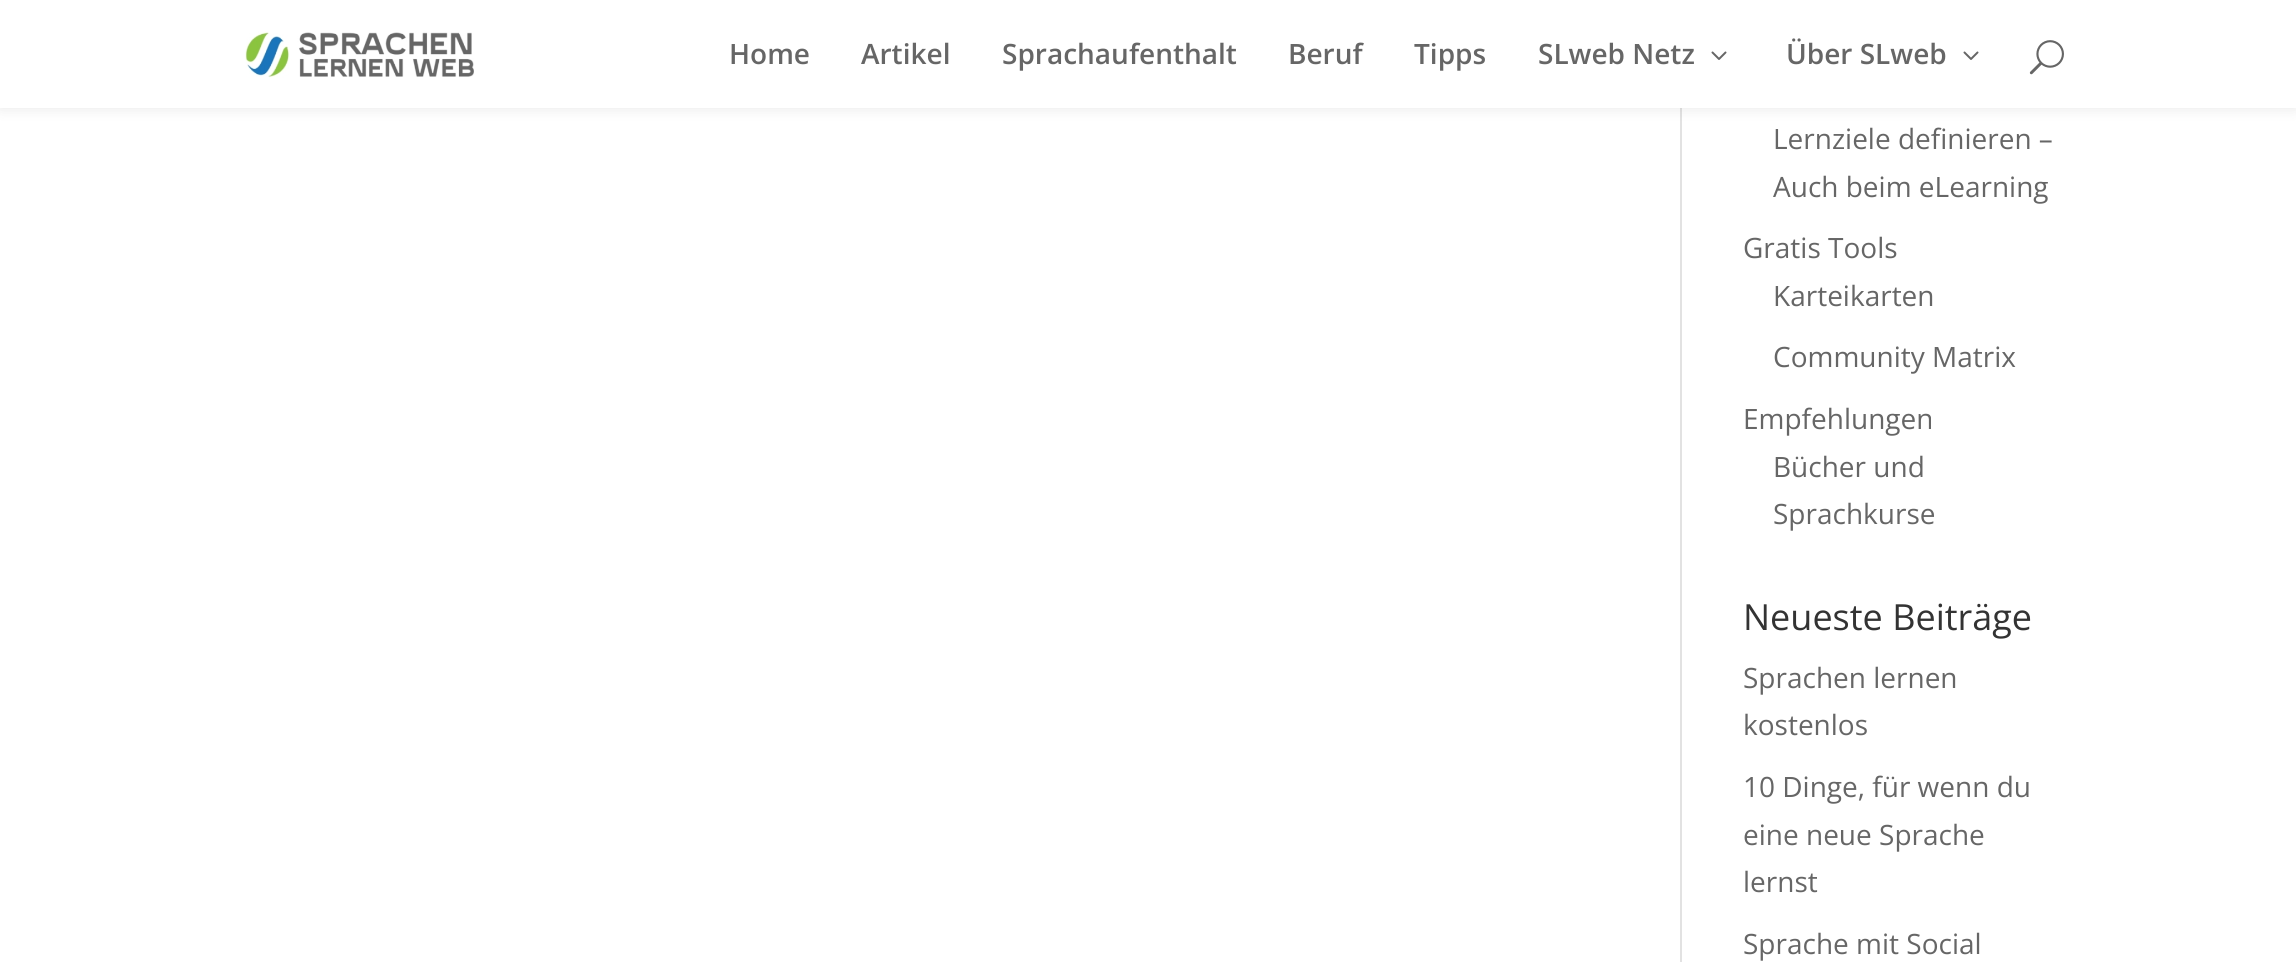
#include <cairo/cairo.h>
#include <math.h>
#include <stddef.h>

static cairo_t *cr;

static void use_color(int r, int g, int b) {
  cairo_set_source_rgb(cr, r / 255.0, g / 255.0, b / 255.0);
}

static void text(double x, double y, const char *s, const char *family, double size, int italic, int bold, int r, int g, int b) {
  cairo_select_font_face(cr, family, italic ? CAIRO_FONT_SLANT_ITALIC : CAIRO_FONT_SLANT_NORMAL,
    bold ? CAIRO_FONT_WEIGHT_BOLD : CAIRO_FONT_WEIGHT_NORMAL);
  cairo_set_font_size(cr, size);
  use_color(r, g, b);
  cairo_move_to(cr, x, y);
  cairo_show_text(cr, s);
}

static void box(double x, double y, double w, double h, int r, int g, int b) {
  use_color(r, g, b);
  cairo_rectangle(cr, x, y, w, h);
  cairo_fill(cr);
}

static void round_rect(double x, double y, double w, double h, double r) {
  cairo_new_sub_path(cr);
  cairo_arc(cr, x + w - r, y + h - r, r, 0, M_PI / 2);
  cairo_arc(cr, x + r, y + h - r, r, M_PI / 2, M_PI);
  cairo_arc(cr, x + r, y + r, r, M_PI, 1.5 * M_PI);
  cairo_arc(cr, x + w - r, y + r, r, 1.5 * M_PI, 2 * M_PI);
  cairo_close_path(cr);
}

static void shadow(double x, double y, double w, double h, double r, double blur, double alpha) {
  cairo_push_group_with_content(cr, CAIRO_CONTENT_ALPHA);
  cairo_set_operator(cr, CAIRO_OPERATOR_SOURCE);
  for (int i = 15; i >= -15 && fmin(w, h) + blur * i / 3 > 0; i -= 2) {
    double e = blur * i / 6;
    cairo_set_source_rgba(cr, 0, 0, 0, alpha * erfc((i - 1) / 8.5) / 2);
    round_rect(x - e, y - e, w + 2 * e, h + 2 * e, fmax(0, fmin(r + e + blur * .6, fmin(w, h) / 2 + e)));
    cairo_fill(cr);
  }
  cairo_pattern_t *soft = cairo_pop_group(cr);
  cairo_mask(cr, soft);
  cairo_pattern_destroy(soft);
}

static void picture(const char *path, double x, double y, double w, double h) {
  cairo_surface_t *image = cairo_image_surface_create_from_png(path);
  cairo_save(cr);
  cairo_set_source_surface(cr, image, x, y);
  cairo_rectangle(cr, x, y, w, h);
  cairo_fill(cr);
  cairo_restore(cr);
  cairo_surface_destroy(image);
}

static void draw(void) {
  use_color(255, 255, 255);
  cairo_paint(cr);
  box(1680, 108, 2, 854, 226, 226, 226);
  use_color(0, 0, 0);
  shadow(0, 0, 2296, 108, 0, 7, 0.1);
  box(0, 0, 2296, 108, 255, 255, 255);
  picture("img_01.png", 245, 31, 229, 47);
  picture("img_02.png", 1711, 51, 16, 9);
  picture("img_02.png", 1963, 51, 16, 9);
  picture("img_03.png", 2029, 40, 35, 35);
  text(729, 64, "Home", "Open Sans SemiBold", 28, 0, 0, 102, 102, 102);
  text(861, 64, "Artikel", "Open Sans SemiBold", 28, 0, 0, 102, 102, 102);
  text(1002, 64, "Sprachaufenthalt", "Open Sans SemiBold", 28, 0, 0, 102, 102, 102);
  text(1288, 64, "Beruf", "Open Sans SemiBold", 28, 0, 0, 102, 102, 102);
  text(1414, 64, "Tipps", "Open Sans SemiBold", 28, 0, 0, 102, 102, 102);
  text(1538, 64, "SLweb Netz", "Open Sans SemiBold", 28, 0, 0, 102, 102, 102);
  text(1786, 64, "Über SLweb", "Open Sans SemiBold", 28, 0, 0, 102, 102, 102);
  text(1773, 149, "Lernziele definieren –", "Open Sans", 28, 0, 0, 102, 102, 102);
  text(1773, 197, "Auch beim eLearning", "Open Sans", 28, 0, 0, 102, 102, 102);
  text(1743, 258, "Gratis Tools", "Open Sans", 28, 0, 0, 102, 102, 102);
  text(1773, 306, "Karteikarten", "Open Sans", 28, 0, 0, 102, 102, 102);
  text(1773, 367, "Community Matrix", "Open Sans", 28, 0, 0, 102, 102, 102);
  text(1743, 429, "Empfehlungen", "Open Sans", 28, 0, 0, 102, 102, 102);
  text(1773, 477, "Bücher und", "Open Sans", 28, 0, 0, 102, 102, 102);
  text(1773, 524, "Sprachkurse", "Open Sans", 28, 0, 0, 102, 102, 102);
  text(1743, 630, "Neueste Beiträge", "Open Sans", 36, 0, 0, 51, 51, 51);
  text(1743, 688, "Sprachen lernen", "Open Sans", 28, 0, 0, 102, 102, 102);
  text(1743, 735, "kostenlos", "Open Sans", 28, 0, 0, 102, 102, 102);
  text(1743, 797, "10 Dinge, für wenn du", "Open Sans", 28, 0, 0, 102, 102, 102);
  text(1743, 845, "eine neue Sprache", "Open Sans", 28, 0, 0, 102, 102, 102);
  text(1743, 892, "lernst", "Open Sans", 28, 0, 0, 102, 102, 102);
  text(1743, 954, "Sprache mit Social", "Open Sans", 28, 0, 0, 102, 102, 102);
}

int main(void) {
  cairo_surface_t *surface = cairo_image_surface_create(CAIRO_FORMAT_RGB24, 2296, 962);
  cr = cairo_create(surface);
  cairo_font_options_t *options = cairo_font_options_create();
  cairo_font_options_set_hint_metrics(options, CAIRO_HINT_METRICS_OFF);
  cairo_font_options_set_hint_style(options, CAIRO_HINT_STYLE_NONE);
  cairo_set_font_options(cr, options);
  cairo_set_miter_limit(cr, 4);
  draw();
  cairo_surface_write_to_png(surface, "out.png");
  cairo_font_options_destroy(options);
  cairo_destroy(cr);
  cairo_surface_destroy(surface);
  return 0;
}
